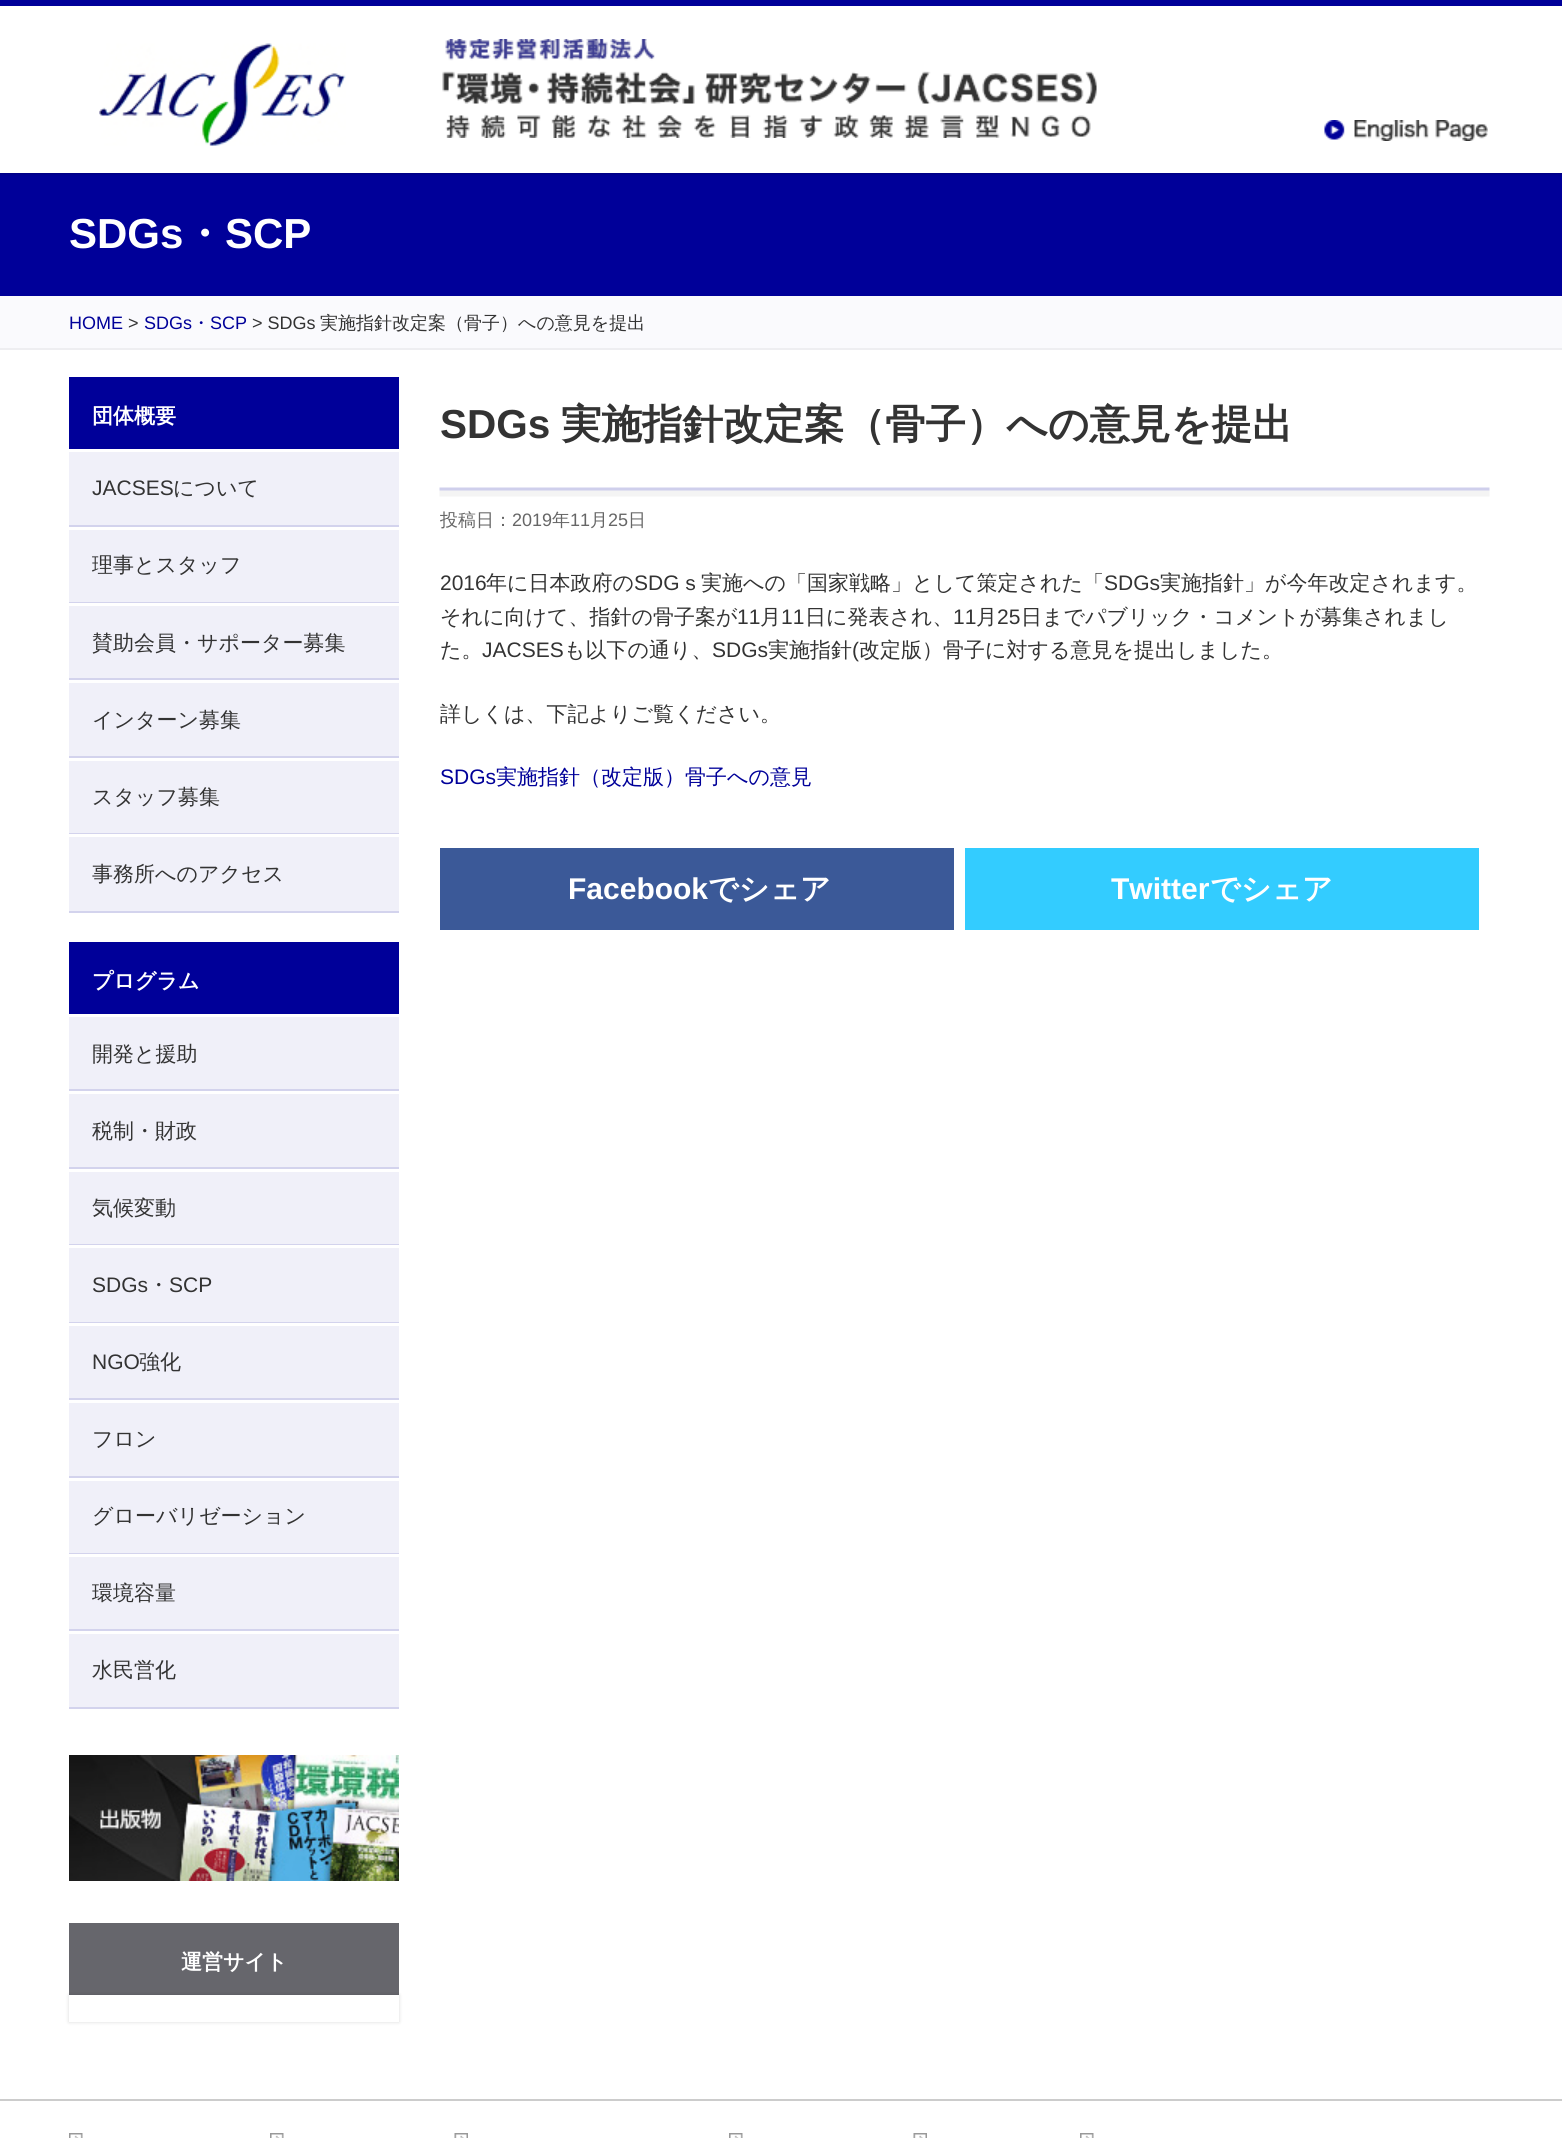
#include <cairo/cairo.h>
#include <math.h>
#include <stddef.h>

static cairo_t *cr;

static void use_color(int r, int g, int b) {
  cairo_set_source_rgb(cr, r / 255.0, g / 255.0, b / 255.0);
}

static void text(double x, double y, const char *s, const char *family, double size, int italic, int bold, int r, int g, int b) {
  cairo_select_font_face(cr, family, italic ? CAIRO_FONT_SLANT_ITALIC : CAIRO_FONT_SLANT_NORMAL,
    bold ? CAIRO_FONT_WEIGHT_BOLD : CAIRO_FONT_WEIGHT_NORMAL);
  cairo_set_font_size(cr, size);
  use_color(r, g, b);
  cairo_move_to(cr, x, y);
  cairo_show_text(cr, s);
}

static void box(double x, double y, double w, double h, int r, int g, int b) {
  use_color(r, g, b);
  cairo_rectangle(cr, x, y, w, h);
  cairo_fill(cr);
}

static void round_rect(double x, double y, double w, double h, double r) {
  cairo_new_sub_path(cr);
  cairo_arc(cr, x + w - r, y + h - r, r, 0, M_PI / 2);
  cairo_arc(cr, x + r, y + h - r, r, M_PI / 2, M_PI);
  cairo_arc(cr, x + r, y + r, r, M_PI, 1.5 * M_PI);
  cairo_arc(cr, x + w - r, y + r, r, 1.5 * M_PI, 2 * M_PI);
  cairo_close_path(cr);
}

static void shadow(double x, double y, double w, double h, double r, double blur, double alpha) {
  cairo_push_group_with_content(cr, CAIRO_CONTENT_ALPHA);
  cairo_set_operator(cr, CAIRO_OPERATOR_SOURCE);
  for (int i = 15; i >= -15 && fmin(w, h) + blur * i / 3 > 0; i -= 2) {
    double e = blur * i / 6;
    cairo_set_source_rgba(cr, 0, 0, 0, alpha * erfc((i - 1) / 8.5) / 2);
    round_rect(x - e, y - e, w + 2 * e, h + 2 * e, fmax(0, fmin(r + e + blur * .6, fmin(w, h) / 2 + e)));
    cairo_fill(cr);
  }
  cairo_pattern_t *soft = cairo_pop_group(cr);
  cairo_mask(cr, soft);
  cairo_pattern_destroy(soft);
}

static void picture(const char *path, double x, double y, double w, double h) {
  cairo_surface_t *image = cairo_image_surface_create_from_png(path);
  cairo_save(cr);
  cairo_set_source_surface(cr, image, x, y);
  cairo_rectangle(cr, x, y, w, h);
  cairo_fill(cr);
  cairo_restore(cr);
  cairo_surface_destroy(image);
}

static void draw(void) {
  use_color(255, 255, 255);
  cairo_paint(cr);
  box(0, 173, 1562, 123, 0, 0, 153);
  cairo_save(cr);
  cairo_set_fill_rule(cr, CAIRO_FILL_RULE_EVEN_ODD);
  cairo_new_path(cr);
  cairo_move_to(cr, 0, 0);
  cairo_line_to(cr, 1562, 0);
  cairo_line_to(cr, 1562, 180);
  cairo_line_to(cr, 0, 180);
  cairo_close_path(cr);
  cairo_move_to(cr, 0, 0);
  cairo_line_to(cr, 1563, 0);
  cairo_line_to(cr, 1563, 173);
  cairo_line_to(cr, 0, 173);
  cairo_close_path(cr);
  cairo_clip(cr);
  use_color(0, 0, 0);
  shadow(0, 0, 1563, 173, 0, 2, 0.3);
  cairo_restore(cr);
  box(0, 0, 1562, 6, 0, 0, 153);
  picture("img_01.png", 99, 43, 247, 103);
  picture("img_02.png", 442, 39, 655, 99);
  picture("img_03.png", 1324, 120, 164, 21);
  box(0, 296, 1562, 52, 250, 250, 253);
  box(0, 348, 1562, 2, 238, 238, 241);
  box(69, 377, 330, 72, 0, 0, 153);
  box(69, 452, 330, 73, 240, 240, 249);
  box(69, 525, 330, 2, 211, 211, 237);
  box(69, 530, 330, 72, 240, 240, 249);
  box(69, 602, 330, 1, 211, 211, 237);
  box(69, 606, 330, 72, 240, 240, 249);
  box(69, 678, 330, 2, 211, 211, 237);
  box(69, 683, 330, 73, 240, 240, 249);
  box(69, 756, 330, 2, 211, 211, 237);
  box(69, 761, 330, 72, 240, 240, 249);
  box(69, 833, 330, 1, 211, 211, 237);
  box(69, 837, 330, 74, 240, 240, 249);
  box(69, 911, 330, 2, 211, 211, 237);
  box(69, 942, 330, 72, 0, 0, 153);
  box(69, 1017, 330, 72, 240, 240, 249);
  box(69, 1089, 330, 2, 211, 211, 237);
  box(69, 1094, 330, 73, 240, 240, 249);
  box(69, 1167, 330, 2, 211, 211, 237);
  box(69, 1172, 330, 72, 240, 240, 249);
  box(69, 1244, 330, 1, 211, 211, 237);
  box(69, 1248, 330, 74, 240, 240, 249);
  box(69, 1322, 330, 1, 211, 211, 237);
  box(69, 1326, 330, 72, 240, 240, 249);
  box(69, 1398, 330, 2, 211, 211, 237);
  box(69, 1403, 330, 73, 240, 240, 249);
  box(69, 1476, 330, 2, 211, 211, 237);
  box(69, 1481, 330, 72, 240, 240, 249);
  box(69, 1553, 330, 1, 211, 211, 237);
  box(69, 1557, 330, 72, 240, 240, 249);
  box(69, 1629, 330, 2, 211, 211, 237);
  box(69, 1634, 330, 73, 240, 240, 249);
  box(69, 1707, 330, 2, 211, 211, 237);
  picture("img_04.png", 69, 1755, 330, 126);
  box(69, 1923, 330, 72, 102, 102, 108);
  cairo_save(cr);
  cairo_set_fill_rule(cr, CAIRO_FILL_RULE_EVEN_ODD);
  cairo_new_path(cr);
  cairo_move_to(cr, 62, 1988);
  cairo_line_to(cr, 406, 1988);
  cairo_line_to(cr, 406, 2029);
  cairo_line_to(cr, 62, 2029);
  cairo_close_path(cr);
  cairo_move_to(cr, 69, 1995);
  cairo_line_to(cr, 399, 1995);
  cairo_line_to(cr, 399, 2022);
  cairo_line_to(cr, 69, 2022);
  cairo_close_path(cr);
  cairo_clip(cr);
  use_color(0, 0, 0);
  shadow(69, 1995, 330, 27, 0, 2, 0.15);
  cairo_restore(cr);
  picture("img_05.png", 439, 487, 1051, 10);
  box(440, 848, 514, 82, 59, 89, 152);
  box(965, 848, 514, 82, 51, 204, 255);
  box(0, 2099, 1562, 2, 204, 204, 204);
  picture("img_06.png", 69, 2133, 14, 5);
  picture("img_07.png", 270, 2133, 14, 5);
  picture("img_08.png", 454, 2133, 14, 5);
  picture("img_07.png", 729, 2133, 14, 5);
  picture("img_08.png", 913, 2133, 14, 5);
  picture("img_07.png", 1080, 2133, 14, 5);
  text(69, 248, "SDGs", "Liberation Sans", 42, 0, 1, 255, 255, 255);
  text(183, 248, "・", "WenQuanYi Zen Hei", 42, 0, 1, 255, 255, 255);
  text(225, 248, "SCP", "Liberation Sans", 42, 0, 1, 255, 255, 255);
  text(69, 329, "HOME", "Liberation Sans", 18, 0, 0, 0, 0, 153);
  text(128, 329, ">", "Liberation Sans", 18, 0, 0, 51, 51, 51);
  text(144, 329, "SDGs", "Liberation Sans", 18, 0, 0, 0, 0, 153);
  text(192, 329, "・", "WenQuanYi Zen Hei Medium", 18, 0, 0, 0, 0, 153);
  text(210, 329, "SCP", "Liberation Sans", 18, 0, 0, 0, 0, 153);
  text(252, 329, "> SDGs", "Liberation Sans", 18, 0, 0, 51, 51, 51);
  text(320, 329, "実施指針改定案（骨子）への意見を提出", "WenQuanYi Zen Hei Medium", 18, 0, 0, 51, 51, 51);
  text(92, 423, "団体概要", "WenQuanYi Zen Hei", 21, 0, 1, 255, 255, 255);
  text(92, 495, "JACSES", "Liberation Sans", 21, 0, 0, 51, 51, 51);
  text(173, 495, "について", "WenQuanYi Zen Hei Medium", 21, 0, 0, 51, 51, 51);
  text(92, 572, "理事とスタッフ", "WenQuanYi Zen Hei Medium", 21, 0, 0, 51, 51, 51);
  text(92, 650, "賛助会員・サポーター募集", "WenQuanYi Zen Hei Medium", 21, 0, 0, 51, 51, 51);
  text(92, 727, "インターン募集", "WenQuanYi Zen Hei Medium", 21, 0, 0, 51, 51, 51);
  text(92, 804, "スタッフ募集", "WenQuanYi Zen Hei Medium", 21, 0, 0, 51, 51, 51);
  text(92, 881, "事務所へのアクセス", "WenQuanYi Zen Hei Medium", 21, 0, 0, 51, 51, 51);
  text(92, 988, "プログラム", "WenQuanYi Zen Hei", 21, 0, 1, 255, 255, 255);
  text(92, 1061, "開発と援助", "WenQuanYi Zen Hei Medium", 21, 0, 0, 51, 51, 51);
  text(92, 1138, "税制・財政", "WenQuanYi Zen Hei Medium", 21, 0, 0, 51, 51, 51);
  text(92, 1215, "気候変動", "WenQuanYi Zen Hei Medium", 21, 0, 0, 51, 51, 51);
  text(92, 1292, "SDGs", "Liberation Sans", 21, 0, 0, 51, 51, 51);
  text(148, 1292, "・", "WenQuanYi Zen Hei Medium", 21, 0, 0, 51, 51, 51);
  text(169, 1292, "SCP", "Liberation Sans", 21, 0, 0, 51, 51, 51);
  text(92, 1369, "NGO", "Liberation Sans", 21, 0, 0, 51, 51, 51);
  text(139, 1369, "強化", "WenQuanYi Zen Hei Medium", 21, 0, 0, 51, 51, 51);
  text(92, 1446, "フロン", "WenQuanYi Zen Hei Medium", 21, 0, 0, 51, 51, 51);
  text(92, 1523, "グローバリゼーション", "WenQuanYi Zen Hei Medium", 21, 0, 0, 51, 51, 51);
  text(92, 1600, "環境容量", "WenQuanYi Zen Hei Medium", 21, 0, 0, 51, 51, 51);
  text(92, 1677, "水民営化", "WenQuanYi Zen Hei Medium", 21, 0, 0, 51, 51, 51);
  text(181, 1969, "運営サイト", "WenQuanYi Zen Hei", 21, 0, 1, 255, 255, 255);
  text(440, 438, "SDGs", "Liberation Sans", 40.5, 0, 1, 51, 51, 51);
  text(561, 438, "実施指針改定案（骨子）への意見を提出", "WenQuanYi Zen Hei", 40.5, 0, 1, 51, 51, 51);
  text(440, 526, "投稿日：", "WenQuanYi Zen Hei Medium", 18, 0, 0, 102, 102, 102);
  text(512, 526, "2019", "Liberation Sans", 18, 0, 0, 102, 102, 102);
  text(552, 526, "年", "WenQuanYi Zen Hei Medium", 18, 0, 0, 102, 102, 102);
  text(570, 526, "11", "Liberation Sans", 18, 0, 0, 102, 102, 102);
  text(590, 526, "月", "WenQuanYi Zen Hei Medium", 18, 0, 0, 102, 102, 102);
  text(608, 526, "25", "Liberation Sans", 18, 0, 0, 102, 102, 102);
  text(628, 526, "日", "WenQuanYi Zen Hei Medium", 18, 0, 0, 102, 102, 102);
  text(440, 590, "2016", "Liberation Sans", 21, 0, 0, 51, 51, 51);
  text(486, 590, "年に日本政府の", "WenQuanYi Zen Hei Medium", 21, 0, 0, 51, 51, 51);
  text(634, 590, "SDG", "Liberation Sans", 21, 0, 0, 51, 51, 51);
  text(680, 590, "ｓ実施への「国家戦略」として策定された「", "WenQuanYi Zen Hei Medium", 21, 0, 0, 51, 51, 51);
  text(1104, 590, "SDGs", "Liberation Sans", 21, 0, 0, 51, 51, 51);
  text(1160, 590, "実施指針」が今年改定されます。", "WenQuanYi Zen Hei Medium", 21, 0, 0, 51, 51, 51);
  text(440, 624, "それに向けて、指針の骨子案が", "WenQuanYi Zen Hei Medium", 21, 0, 0, 51, 51, 51);
  text(737, 624, "11", "Liberation Sans", 21, 0, 0, 51, 51, 51);
  text(760, 624, "月", "WenQuanYi Zen Hei Medium", 21, 0, 0, 51, 51, 51);
  text(781, 624, "11", "Liberation Sans", 21, 0, 0, 51, 51, 51);
  text(805, 624, "日に発表され、", "WenQuanYi Zen Hei Medium", 21, 0, 0, 51, 51, 51);
  text(953, 624, "11", "Liberation Sans", 21, 0, 0, 51, 51, 51);
  text(976, 624, "月", "WenQuanYi Zen Hei Medium", 21, 0, 0, 51, 51, 51);
  text(997, 624, "25", "Liberation Sans", 21, 0, 0, 51, 51, 51);
  text(1021, 624, "日までパブリック・コメントが募集されまし", "WenQuanYi Zen Hei Medium", 21, 0, 0, 51, 51, 51);
  text(440, 657, "た。", "WenQuanYi Zen Hei Medium", 21, 0, 0, 51, 51, 51);
  text(482, 657, "JACSES", "Liberation Sans", 21, 0, 0, 51, 51, 51);
  text(564, 657, "も以下の通り、", "WenQuanYi Zen Hei Medium", 21, 0, 0, 51, 51, 51);
  text(712, 657, "SDGs", "Liberation Sans", 21, 0, 0, 51, 51, 51);
  text(768, 657, "実施指針", "WenQuanYi Zen Hei Medium", 21, 0, 0, 51, 51, 51);
  text(852, 657, "(", "Liberation Sans", 21, 0, 0, 51, 51, 51);
  text(859, 657, "改定版）骨子に対する意見を提出しました。", "WenQuanYi Zen Hei Medium", 21, 0, 0, 51, 51, 51);
  text(440, 721, "詳しくは、下記よりご覧ください。", "WenQuanYi Zen Hei Medium", 21, 0, 0, 51, 51, 51);
  text(440, 784, "SDGs", "Liberation Sans", 21, 0, 0, 0, 0, 153);
  text(496, 784, "実施指針（改定版）骨子への意見", "WenQuanYi Zen Hei Medium", 21, 0, 0, 0, 0, 153);
  text(568, 899, "Facebook", "Liberation Sans", 30, 0, 1, 255, 255, 255);
  text(708, 899, "でシェア", "WenQuanYi Zen Hei", 30, 0, 1, 255, 255, 255);
  text(1111, 899, "Twitter", "Liberation Sans", 30, 0, 1, 255, 255, 255);
  text(1210, 899, "でシェア", "WenQuanYi Zen Hei", 30, 0, 1, 255, 255, 255);
}

int main(void) {
  cairo_surface_t *surface = cairo_image_surface_create(CAIRO_FORMAT_RGB24, 1562, 2138);
  cr = cairo_create(surface);
  cairo_font_options_t *options = cairo_font_options_create();
  cairo_font_options_set_hint_metrics(options, CAIRO_HINT_METRICS_OFF);
  cairo_font_options_set_hint_style(options, CAIRO_HINT_STYLE_NONE);
  cairo_set_font_options(cr, options);
  cairo_set_miter_limit(cr, 4);
  draw();
  cairo_surface_write_to_png(surface, "out.png");
  cairo_font_options_destroy(options);
  cairo_destroy(cr);
  cairo_surface_destroy(surface);
  return 0;
}
